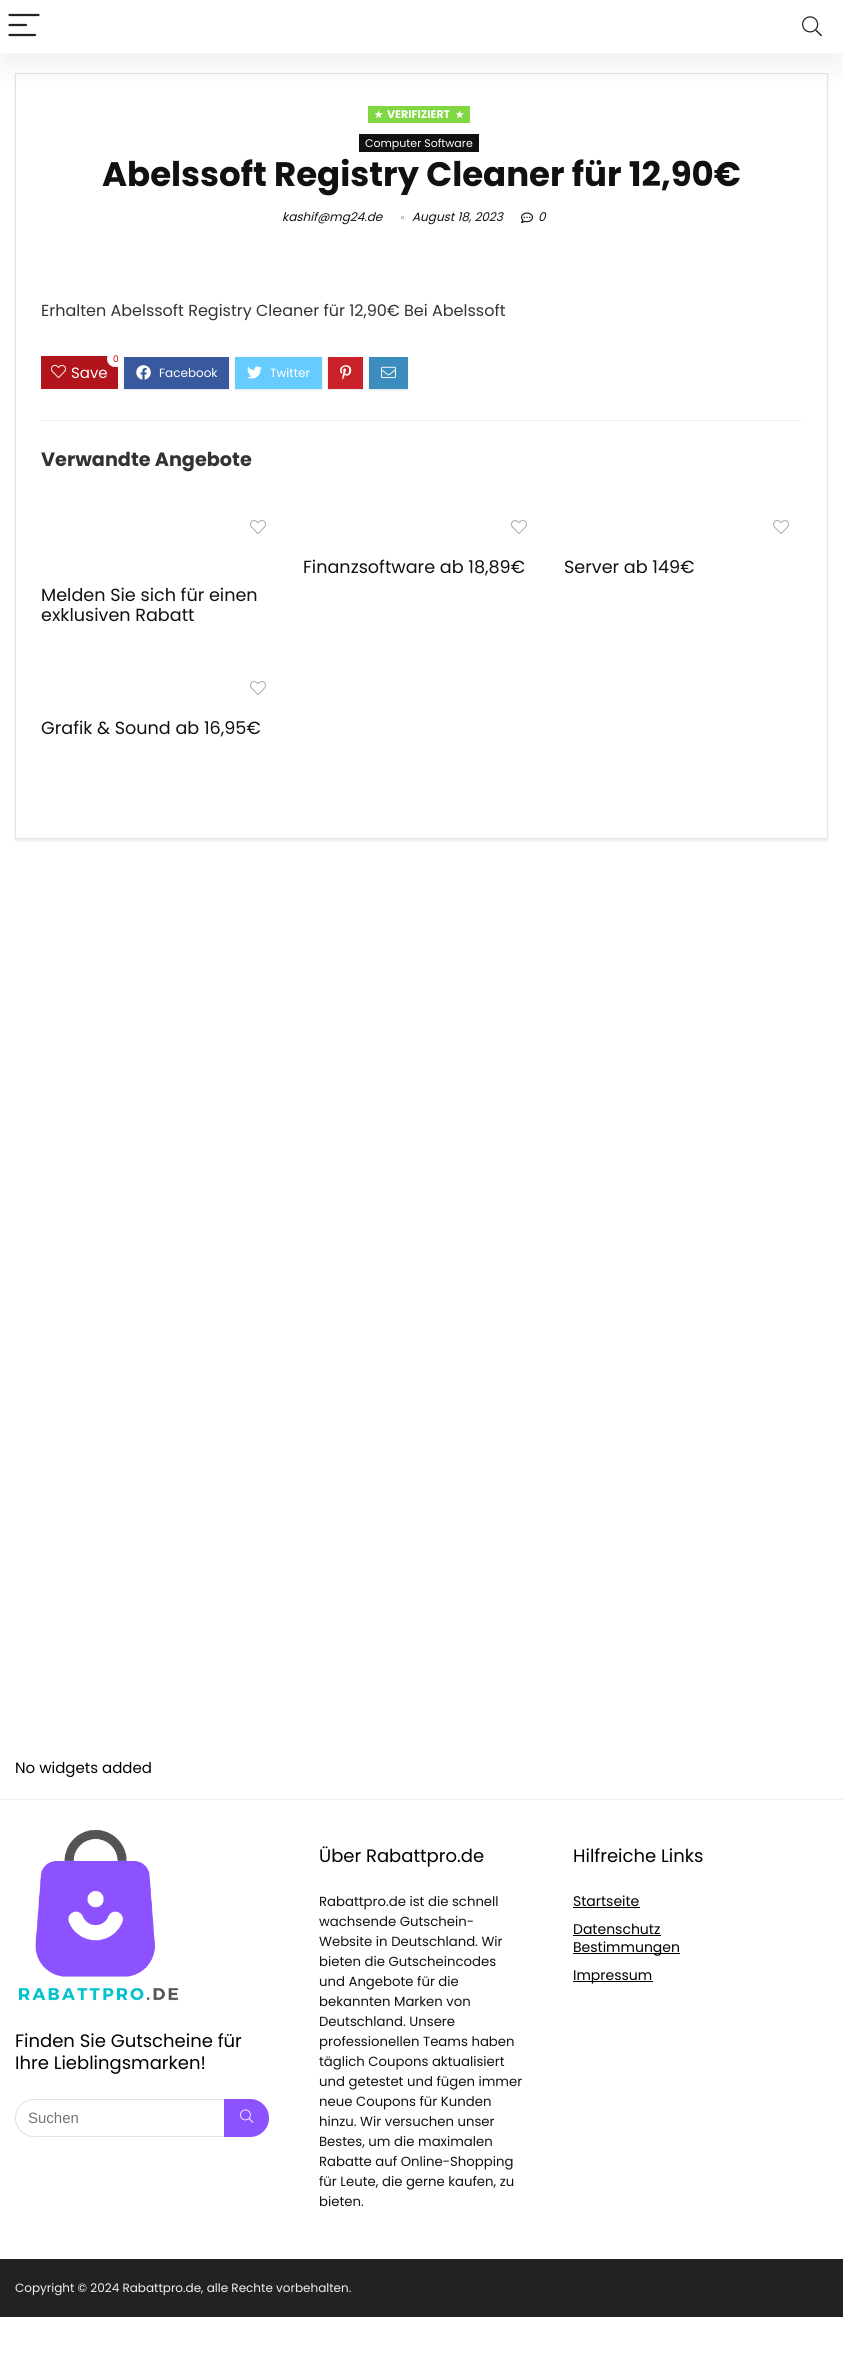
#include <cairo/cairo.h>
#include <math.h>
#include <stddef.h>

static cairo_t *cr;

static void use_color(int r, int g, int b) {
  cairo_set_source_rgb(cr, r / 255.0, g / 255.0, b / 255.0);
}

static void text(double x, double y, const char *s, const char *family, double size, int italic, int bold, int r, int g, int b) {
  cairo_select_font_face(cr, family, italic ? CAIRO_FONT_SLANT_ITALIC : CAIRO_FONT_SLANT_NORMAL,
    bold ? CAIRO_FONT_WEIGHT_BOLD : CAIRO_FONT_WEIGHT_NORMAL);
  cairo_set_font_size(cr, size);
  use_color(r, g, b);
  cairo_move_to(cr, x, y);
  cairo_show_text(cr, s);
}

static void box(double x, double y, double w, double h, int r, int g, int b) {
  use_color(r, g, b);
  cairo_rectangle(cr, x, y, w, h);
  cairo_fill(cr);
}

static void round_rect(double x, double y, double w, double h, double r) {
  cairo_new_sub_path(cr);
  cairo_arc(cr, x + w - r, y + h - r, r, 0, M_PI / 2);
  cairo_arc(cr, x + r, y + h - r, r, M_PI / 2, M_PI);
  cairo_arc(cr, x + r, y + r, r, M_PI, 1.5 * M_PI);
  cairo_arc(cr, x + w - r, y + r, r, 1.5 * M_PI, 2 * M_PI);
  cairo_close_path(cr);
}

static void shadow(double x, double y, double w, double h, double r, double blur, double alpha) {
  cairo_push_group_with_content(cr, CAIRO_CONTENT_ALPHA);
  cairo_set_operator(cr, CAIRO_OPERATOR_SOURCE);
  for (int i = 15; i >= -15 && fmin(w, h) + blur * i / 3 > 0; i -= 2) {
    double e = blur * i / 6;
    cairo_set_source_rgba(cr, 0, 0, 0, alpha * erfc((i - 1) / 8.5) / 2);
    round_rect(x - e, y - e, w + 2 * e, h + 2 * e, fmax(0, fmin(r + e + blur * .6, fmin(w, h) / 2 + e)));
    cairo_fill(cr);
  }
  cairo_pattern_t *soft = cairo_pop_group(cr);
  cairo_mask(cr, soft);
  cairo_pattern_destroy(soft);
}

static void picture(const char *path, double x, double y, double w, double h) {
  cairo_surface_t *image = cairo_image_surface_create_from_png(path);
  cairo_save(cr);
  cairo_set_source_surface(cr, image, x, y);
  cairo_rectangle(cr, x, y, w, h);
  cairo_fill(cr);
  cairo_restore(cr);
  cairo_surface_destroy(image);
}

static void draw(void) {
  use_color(255, 255, 255);
  cairo_paint(cr);
  cairo_save(cr);
  cairo_set_fill_rule(cr, CAIRO_FILL_RULE_EVEN_ODD);
  cairo_new_path(cr);
  cairo_move_to(cr, 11, 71);
  cairo_line_to(cr, 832, 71);
  cairo_line_to(cr, 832, 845);
  cairo_line_to(cr, 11, 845);
  cairo_close_path(cr);
  cairo_move_to(cr, 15, 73);
  cairo_line_to(cr, 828, 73);
  cairo_line_to(cr, 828, 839);
  cairo_line_to(cr, 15, 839);
  cairo_close_path(cr);
  cairo_clip(cr);
  use_color(236, 236, 236);
  shadow(15, 75, 813, 766, 0, 1, 1);
  cairo_restore(cr);
  cairo_rectangle(cr, 15.5, 73.5, 812, 765);
  use_color(227, 227, 227);
  cairo_set_line_width(cr, 1);
  cairo_stroke(cr);
  box(368, 106, 102, 17, 129, 215, 66);
  cairo_save(cr);
  cairo_rectangle(cr, 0, 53, 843, 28);
  cairo_clip(cr);
  use_color(119, 123, 146);
  shadow(0, 15, 843, 53, 0, 15, 0.1);
  cairo_restore(cr);
  cairo_new_path(cr);
  cairo_move_to(cr, 9.5, 15);
  cairo_line_to(cr, 38.5, 15);
  cairo_move_to(cr, 9.5, 25);
  cairo_line_to(cr, 26, 25);
  cairo_move_to(cr, 9.5, 35);
  cairo_line_to(cr, 35, 35);
  use_color(38, 34, 34);
  cairo_set_line_width(cr, 2.2);
  cairo_set_line_cap(cr, CAIRO_LINE_CAP_ROUND);
  cairo_stroke(cr);
  picture("img_01.png", 802, 16, 20, 21);
  box(359, 134, 120, 18, 17, 17, 17);
  picture("img_02.png", 401, 216, 3, 4);
  picture("img_03.png", 521, 212, 12, 11);
  box(41, 356, 77, 33, 177, 20, 26);
  use_color(255, 255, 255);
  round_rect(107, 351, 18, 16, 8);
  cairo_fill(cr);
  picture("img_04.png", 51, 364, 15, 14);
  use_color(228, 228, 228);
  shadow(124, 358, 105, 32, 0, 1, 1);
  box(124, 357, 105, 32, 57, 89, 159);
  picture("img_05.png", 136, 365, 15, 15);
  use_color(228, 228, 228);
  shadow(235, 358, 87, 32, 0, 1, 1);
  box(235, 357, 87, 32, 102, 204, 255);
  picture("img_06.png", 247, 366, 15, 13);
  use_color(228, 228, 228);
  shadow(328, 358, 35, 32, 0, 1, 1);
  box(328, 357, 35, 32, 202, 33, 42);
  picture("img_07.png", 340, 365, 12, 15);
  use_color(228, 228, 228);
  shadow(369, 358, 39, 32, 0, 1, 1);
  box(369, 357, 39, 32, 59, 141, 189);
  picture("img_08.png", 381, 366, 15, 13);
  box(41, 420, 761, 1, 240, 240, 240);
  picture("img_09.png", 511, 520, 16, 14);
  picture("img_09.png", 773, 520, 16, 14);
  picture("img_09.png", 250, 520, 16, 14);
  picture("img_09.png", 250, 681, 16, 14);
  box(0, 1799, 843, 1, 238, 238, 238);
  box(573, 1907, 67, 1, 0, 0, 0);
  box(573, 1935, 88, 1, 0, 0, 0);
  box(573, 1953, 107, 1, 0, 0, 0);
  box(573, 1981, 80, 1, 0, 0, 0);
  picture("img_10.png", 19, 1829, 160, 172);
  round_rect(15.5, 2099.5, 253, 37, 18.5);
  use_color(225, 225, 225);
  cairo_set_line_width(cr, 1);
  cairo_set_line_cap(cr, CAIRO_LINE_CAP_BUTT);
  cairo_stroke(cr);
  use_color(140, 82, 255);
  cairo_new_path(cr);
  cairo_move_to(cr, 224, 2099);
  cairo_line_to(cr, 250, 2099);
  cairo_curve_to(cr, 260.5, 2099, 269, 2107.5, 269, 2118);
  cairo_curve_to(cr, 269, 2128.5, 260.5, 2137, 250, 2137);
  cairo_line_to(cr, 224, 2137);
  cairo_close_path(cr);
  cairo_fill(cr);
  picture("img_11.png", 240, 2109, 14, 14);
  box(0, 2259, 843, 58, 34, 34, 34);
  text(374, 118, "★", "DejaVu Sans", 10, 0, 1, 255, 255, 255);
  text(387, 118, "VERIFIZIERT", "Poppins", 11, 0, 1, 255, 255, 255);
  text(455, 118, "★", "DejaVu Sans", 10, 0, 1, 255, 255, 255);
  text(365, 147, "Computer Software", "Poppins", 11, 0, 0, 255, 255, 255);
  text(102, 186, "Abelssoft Registry Cleaner für 12,90€", "Poppins", 34, 0, 1, 17, 17, 17);
  text(282, 221, "kashif@mg24.de", "Poppins", 12, 1, 0, 17, 17, 17);
  text(412, 221, "August 18, 2023", "Poppins", 12, 1, 0, 17, 17, 17);
  text(538, 221, "0", "Poppins", 12, 1, 0, 17, 17, 17);
  text(41, 316, "Erhalten Abelssoft Registry Cleaner für 12,90€ Bei Abelssoft", "Poppins", 16, 0, 0, 51, 51, 51);
  text(113, 362, "0", "Poppins", 9, 0, 0, 204, 0, 0);
  text(71, 378, "Save", "Poppins", 15, 0, 0, 255, 255, 255);
  text(159, 377, "Facebook", "Poppins", 12, 0, 0, 255, 255, 255);
  text(270, 377, "Twitter", "Poppins", 12, 0, 0, 255, 255, 255);
  text(41, 466, "Verwandte Angebote", "Poppins", 19.25, 0, 1, 51, 51, 51);
  text(303, 573, "Finanzsoftware ab 18,89€", "Poppins", 17.6, 0, 0, 17, 17, 17);
  text(564, 573, "Server ab 149€", "Poppins", 17.6, 0, 0, 17, 17, 17);
  text(41, 601, "Melden Sie sich für einen", "Poppins", 17.6, 0, 0, 17, 17, 17);
  text(41, 621, "exklusiven Rabatt", "Poppins", 17.6, 0, 0, 17, 17, 17);
  text(41, 734, "Grafik & Sound ab 16,95€", "Poppins", 17.6, 0, 0, 17, 17, 17);
  text(15, 1773, "No widgets added", "Poppins", 15, 0, 0, 0, 0, 0);
  text(319, 1862, "Über Rabattpro.de", "Poppins", 18, 0, 0, 0, 0, 0);
  text(319, 1906, "Rabattpro.de ist die schnell", "Poppins", 13.25, 0, 0, 17, 17, 17);
  text(319, 1926, "wachsende Gutschein-", "Poppins", 13.25, 0, 0, 17, 17, 17);
  text(319, 1946, "Website in Deutschland. Wir", "Poppins", 13.25, 0, 0, 17, 17, 17);
  text(319, 1966, "bieten die Gutscheincodes", "Poppins", 13.25, 0, 0, 17, 17, 17);
  text(319, 1986, "und Angebote für die", "Poppins", 13.25, 0, 0, 17, 17, 17);
  text(319, 2006, "bekannten Marken von", "Poppins", 13.25, 0, 0, 17, 17, 17);
  text(319, 2026, "Deutschland. Unsere", "Poppins", 13.25, 0, 0, 17, 17, 17);
  text(319, 2046, "professionellen Teams haben", "Poppins", 13.25, 0, 0, 17, 17, 17);
  text(319, 2066, "täglich Coupons aktualisiert", "Poppins", 13.25, 0, 0, 17, 17, 17);
  text(319, 2086, "und getestet und fügen immer", "Poppins", 13.25, 0, 0, 17, 17, 17);
  text(319, 2106, "neue Coupons für Kunden", "Poppins", 13.25, 0, 0, 17, 17, 17);
  text(319, 2126, "hinzu. Wir versuchen unser", "Poppins", 13.25, 0, 0, 17, 17, 17);
  text(319, 2146, "Bestes, um die maximalen", "Poppins", 13.25, 0, 0, 17, 17, 17);
  text(319, 2166, "Rabatte auf Online-Shopping", "Poppins", 13.25, 0, 0, 17, 17, 17);
  text(319, 2186, "für Leute, die gerne kaufen, zu", "Poppins", 13.25, 0, 0, 17, 17, 17);
  text(319, 2206, "bieten.", "Poppins", 13.25, 0, 0, 17, 17, 17);
  text(573, 1862, "Hilfreiche Links", "Poppins", 18, 0, 0, 0, 0, 0);
  text(573, 1906, "Startseite", "Poppins", 14, 0, 0, 0, 0, 0);
  text(573, 1934, "Datenschutz", "Poppins", 14, 0, 0, 0, 0, 0);
  text(573, 1952, "Bestimmungen", "Poppins", 14, 0, 0, 0, 0, 0);
  text(573, 1980, "Impressum", "Poppins", 14, 0, 0, 0, 0, 0);
  text(15, 2047, "Finden Sie Gutscheine für", "Poppins", 18, 0, 0, 0, 0, 0);
  text(15, 2069, "Ihre Lieblingsmarken!", "Poppins", 18, 0, 0, 0, 0, 0);
  text(28, 2123, "Suchen", "Liberation Sans", 15, 0, 0, 117, 117, 117);
  text(15, 2292, "Copyright © 2024 Rabattpro.de, alle Rechte vorbehalten.", "Poppins", 12, 0, 0, 241, 241, 241);
}

int main(void) {
  cairo_surface_t *surface = cairo_image_surface_create(CAIRO_FORMAT_RGB24, 843, 2362);
  cr = cairo_create(surface);
  cairo_font_options_t *options = cairo_font_options_create();
  cairo_font_options_set_hint_metrics(options, CAIRO_HINT_METRICS_OFF);
  cairo_font_options_set_hint_style(options, CAIRO_HINT_STYLE_NONE);
  cairo_set_font_options(cr, options);
  cairo_set_miter_limit(cr, 4);
  draw();
  cairo_surface_write_to_png(surface, "out.png");
  cairo_font_options_destroy(options);
  cairo_destroy(cr);
  cairo_surface_destroy(surface);
  return 0;
}
